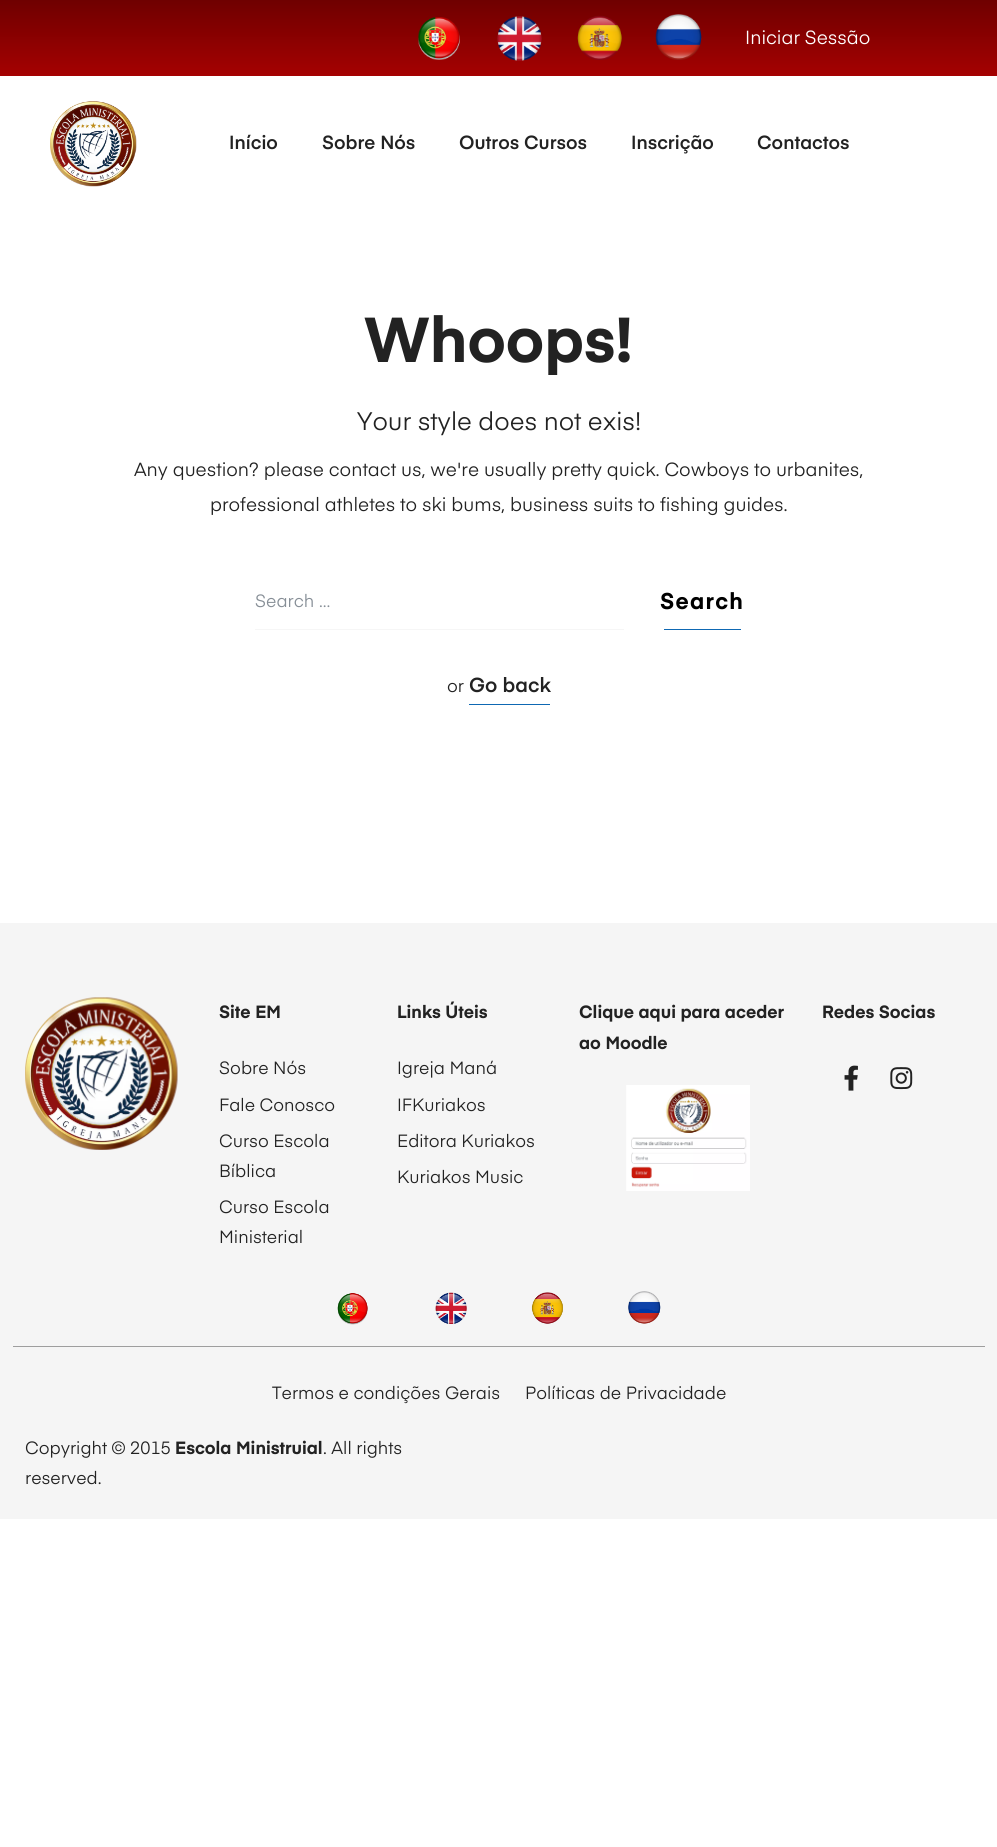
#include <cairo/cairo.h>
#include <math.h>
#include <stddef.h>

static cairo_t *cr;

static void use_color(int r, int g, int b) {
  cairo_set_source_rgb(cr, r / 255.0, g / 255.0, b / 255.0);
}

static void text(double x, double y, const char *s, const char *family, double size, int italic, int bold, int r, int g, int b) {
  cairo_select_font_face(cr, family, italic ? CAIRO_FONT_SLANT_ITALIC : CAIRO_FONT_SLANT_NORMAL,
    bold ? CAIRO_FONT_WEIGHT_BOLD : CAIRO_FONT_WEIGHT_NORMAL);
  cairo_set_font_size(cr, size);
  use_color(r, g, b);
  cairo_move_to(cr, x, y);
  cairo_show_text(cr, s);
}

static void spaced_text(double x, double y, const char *s, double letter, double word) {
  cairo_move_to(cr, x, y);
  while (*s) {
    char ch[5] = {0};
    int n = 0;
    do ch[n++] = *s++; while ((*s & 0xC0) == 0x80);
    cairo_show_text(cr, ch);
    cairo_rel_move_to(cr, letter + word * (*ch == ' '), 0);
  }
}

static void box(double x, double y, double w, double h, int r, int g, int b) {
  use_color(r, g, b);
  cairo_rectangle(cr, x, y, w, h);
  cairo_fill(cr);
}

static void picture(const char *path, double x, double y, double w, double h) {
  cairo_surface_t *image = cairo_image_surface_create_from_png(path);
  cairo_save(cr);
  cairo_set_source_surface(cr, image, x, y);
  cairo_rectangle(cr, x, y, w, h);
  cairo_fill(cr);
  cairo_restore(cr);
  cairo_surface_destroy(image);
}

static void draw(void) {
  cairo_pattern_t *gradient;
  use_color(255, 255, 255);
  cairo_paint(cr);
  gradient = cairo_pattern_create_linear(499, 0, 499, 76);
  cairo_pattern_add_color_stop_rgba(gradient, 0, 0.435, 0, 0, 1);
  cairo_pattern_add_color_stop_rgba(gradient, 1, 0.647, 0.004, 0.004, 1);
  cairo_set_source(cr, gradient);
  cairo_pattern_destroy(gradient);
  cairo_rectangle(cr, 0, 0, 997, 76);
  cairo_fill(cr);
  picture("img_01.png", 418, 17, 42, 43);
  picture("img_02.png", 497, 16, 45, 45);
  picture("img_03.png", 577, 15, 45, 45);
  picture("img_04.png", 655, 14, 47, 46);
  picture("img_05.png", 50, 101, 87, 86);
  box(255, 629, 369, 1, 246, 246, 246);
  box(664, 629, 77, 1, 14, 104, 179);
  box(469, 704, 81, 1, 14, 104, 179);
  box(0, 923, 997, 596, 245, 245, 245);
  picture("img_06.png", 25, 997, 153, 153);
  picture("img_07.png", 626, 1085, 124, 106);
  picture("img_08.png", 844, 1065, 14, 26);
  picture("img_09.png", 890, 1067, 23, 23);
  picture("img_10.png", 337, 1293, 31, 32);
  picture("img_11.png", 435, 1292, 32, 32);
  picture("img_12.png", 531, 1292, 32, 32);
  picture("img_13.png", 628, 1291, 33, 33);
  box(13, 1346, 972, 1, 158, 158, 158);
  text(745, 44, "Iniciar Sessão", "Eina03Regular", 18.75, 0, 0, 255, 255, 255);
  text(229, 149, "Início", "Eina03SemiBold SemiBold", 18.75, 0, 0, 34, 34, 34);
  text(322, 149, "Sobre Nós", "Eina03SemiBold SemiBold", 18.75, 0, 0, 34, 34, 34);
  text(459, 149, "Outros Cursos", "Eina03SemiBold SemiBold", 18.75, 0, 0, 34, 34, 34);
  text(631, 149, "Inscrição", "Eina03SemiBold SemiBold", 18.75, 0, 0, 34, 34, 34);
  text(757, 149, "Contactos", "Eina03SemiBold SemiBold", 18.75, 0, 0, 34, 34, 34);
  text(364, 362, "Whoops!", "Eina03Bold", 62.5, 0, 1, 34, 34, 34);
  text(357, 430, "Your style does not exis!", "Eina03Regular", 25, 0, 0, 34, 34, 34);
  text(134, 476, "Any question? please contact us, we're usually pretty quick. Cowboys to urbanites,", "Eina03Regular", 18.75, 0, 0, 34, 34, 34);
  text(210, 511, "professional athletes to ski bums, business suits to fishing guides.", "Eina03Regular", 18.75, 0, 0, 34, 34, 34);
  text(255, 607, "Search …", "Eina03Regular", 17.5, 0, 0, 134, 142, 150);
  cairo_select_font_face(cr, "Eina03Bold", CAIRO_FONT_SLANT_NORMAL, CAIRO_FONT_WEIGHT_BOLD);
  cairo_set_font_size(cr, 22.5);
  use_color(0, 0, 0);
  spaced_text(660, 609, "Search", 1.25, 0);
  text(447, 692, "or", "Eina03Regular", 17.5, 0, 0, 34, 34, 34);
  text(469, 692, "Go back", "Eina03SemiBold SemiBold", 20, 0, 0, 34, 34, 34);
  text(219, 1018, "Site EM", "Eina03Bold", 17.5, 0, 1, 34, 34, 34);
  text(219, 1074, "Sobre Nós", "Eina03Regular", 17.5, 0, 0, 34, 34, 34);
  text(219, 1111, "Fale Conosco", "Eina03Regular", 17.5, 0, 0, 34, 34, 34);
  text(219, 1147, "Curso Escola", "Eina03Regular", 17.5, 0, 0, 34, 34, 34);
  text(219, 1177, "Bíblica", "Eina03Regular", 17.5, 0, 0, 34, 34, 34);
  text(219, 1213, "Curso Escola", "Eina03Regular", 17.5, 0, 0, 34, 34, 34);
  text(219, 1243, "Ministerial", "Eina03Regular", 17.5, 0, 0, 34, 34, 34);
  text(397, 1018, "Links Úteis", "Eina03Bold", 17.5, 0, 1, 34, 34, 34);
  text(397, 1074, "Igreja Maná", "Eina03Regular", 17.5, 0, 0, 34, 34, 34);
  text(397, 1111, "IFKuriakos", "Eina03Regular", 17.5, 0, 0, 34, 34, 34);
  text(397, 1147, "Editora Kuriakos", "Eina03Regular", 17.5, 0, 0, 34, 34, 34);
  text(397, 1183, "Kuriakos Music", "Eina03Regular", 17.5, 0, 0, 34, 34, 34);
  text(579, 1018, "Clique aqui para aceder", "Eina03Bold", 17.5, 0, 1, 34, 34, 34);
  text(579, 1049, "ao Moodle", "Eina03Bold", 17.5, 0, 1, 34, 34, 34);
  text(822, 1018, "Redes Socias", "Eina03Bold", 17.5, 0, 1, 34, 34, 34);
  text(272, 1399, "Termos e condições Gerais", "Eina03Regular", 17.5, 0, 0, 34, 34, 34);
  text(525, 1399, "Políticas de Privacidade", "Eina03Regular", 17.5, 0, 0, 34, 34, 34);
  text(25, 1454, "Copyright © 2015", "Eina03Regular", 17.5, 0, 0, 34, 34, 34);
  text(175, 1454, "Escola Ministruial", "Eina03Bold", 17.5, 0, 1, 34, 34, 34);
  text(323, 1454, ". All rights", "Eina03Regular", 17.5, 0, 0, 34, 34, 34);
  text(25, 1484, "reserved.", "Eina03Regular", 17.5, 0, 0, 34, 34, 34);
}

int main(void) {
  cairo_surface_t *surface = cairo_image_surface_create(CAIRO_FORMAT_RGB24, 997, 1847);
  cr = cairo_create(surface);
  cairo_font_options_t *options = cairo_font_options_create();
  cairo_font_options_set_hint_metrics(options, CAIRO_HINT_METRICS_OFF);
  cairo_font_options_set_hint_style(options, CAIRO_HINT_STYLE_NONE);
  cairo_set_font_options(cr, options);
  cairo_set_miter_limit(cr, 4);
  draw();
  cairo_surface_write_to_png(surface, "out.png");
  cairo_font_options_destroy(options);
  cairo_destroy(cr);
  cairo_surface_destroy(surface);
  return 0;
}
